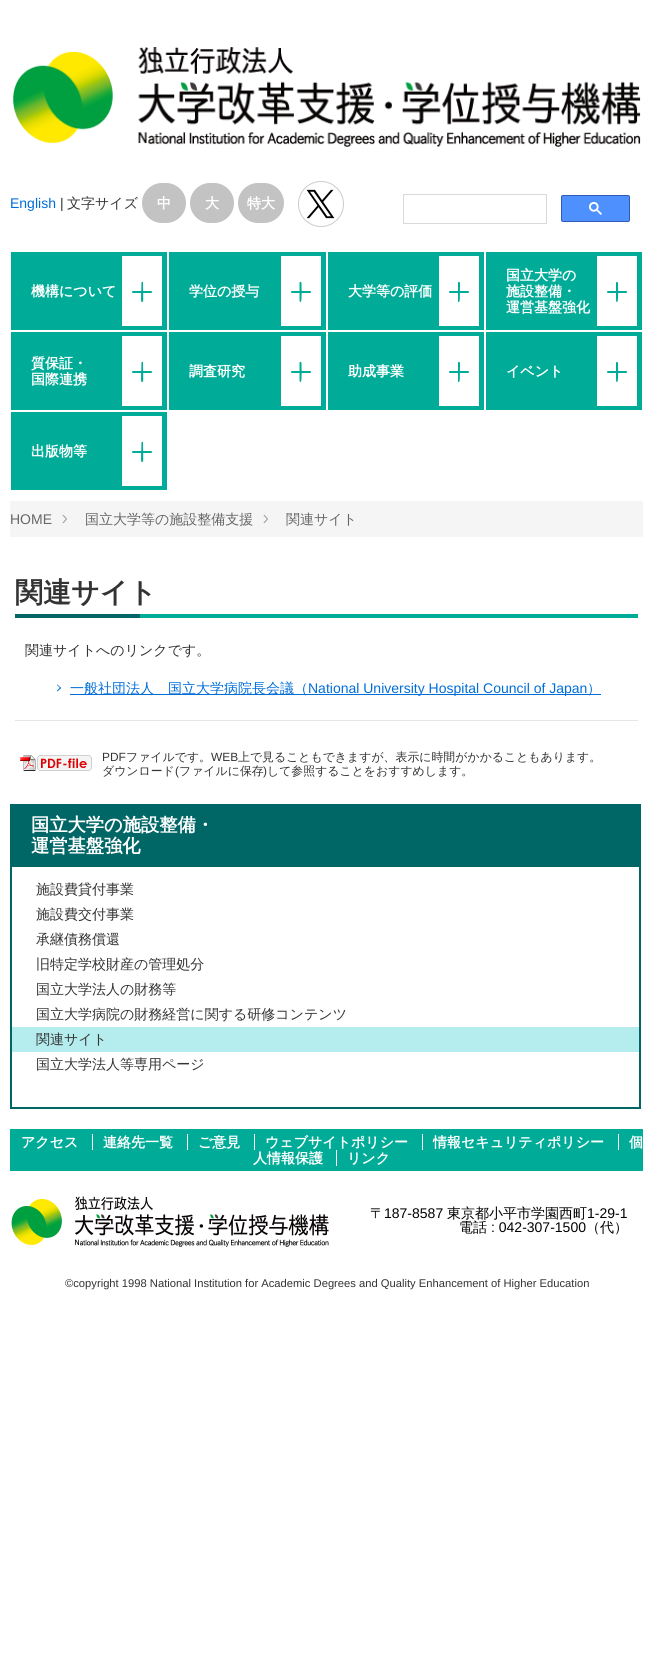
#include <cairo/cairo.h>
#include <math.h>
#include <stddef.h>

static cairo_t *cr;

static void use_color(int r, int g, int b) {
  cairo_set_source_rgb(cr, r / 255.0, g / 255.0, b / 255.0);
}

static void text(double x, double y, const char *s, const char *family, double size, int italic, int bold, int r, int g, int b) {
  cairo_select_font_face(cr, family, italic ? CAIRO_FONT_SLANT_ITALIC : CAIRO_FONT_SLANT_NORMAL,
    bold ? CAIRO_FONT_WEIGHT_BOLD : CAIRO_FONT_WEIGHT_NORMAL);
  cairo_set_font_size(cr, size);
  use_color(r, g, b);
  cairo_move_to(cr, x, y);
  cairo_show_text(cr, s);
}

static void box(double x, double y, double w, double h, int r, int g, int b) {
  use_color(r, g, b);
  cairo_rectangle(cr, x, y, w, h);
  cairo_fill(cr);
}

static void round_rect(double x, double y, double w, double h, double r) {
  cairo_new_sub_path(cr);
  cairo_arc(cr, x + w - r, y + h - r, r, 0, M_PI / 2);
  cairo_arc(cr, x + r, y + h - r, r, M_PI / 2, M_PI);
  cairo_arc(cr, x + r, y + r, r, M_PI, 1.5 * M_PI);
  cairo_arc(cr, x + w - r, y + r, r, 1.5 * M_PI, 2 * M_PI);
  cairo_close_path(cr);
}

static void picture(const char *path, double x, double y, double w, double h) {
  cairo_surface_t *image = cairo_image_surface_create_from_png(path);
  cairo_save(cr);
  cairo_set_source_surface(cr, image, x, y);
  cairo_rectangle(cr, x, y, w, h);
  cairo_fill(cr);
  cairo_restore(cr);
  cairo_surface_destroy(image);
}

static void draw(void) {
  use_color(255, 255, 255);
  cairo_paint(cr);
  picture("img_01.png", 13, 47, 628, 100);
  use_color(195, 195, 195);
  round_rect(142, 183, 44, 40, 20);
  cairo_fill(cr);
  round_rect(190, 183, 44, 40, 20);
  cairo_fill(cr);
  round_rect(238, 183, 46, 40, 20);
  cairo_fill(cr);
  picture("img_02.png", 298, 181, 46, 46);
  cairo_rectangle(cr, 403.5, 194.5, 143, 29);
  use_color(217, 217, 217);
  cairo_set_line_width(cr, 1);
  cairo_stroke(cr);
  use_color(77, 144, 254);
  round_rect(561.5, 195.5, 68, 26, 1.5);
  cairo_fill_preserve(cr);
  use_color(47, 91, 183);
  cairo_stroke(cr);
  picture("img_03.png", 589, 202, 13, 13);
  box(11, 252, 156, 78, 0, 172, 151);
  box(122, 256, 40, 70, 255, 255, 255);
  use_color(0, 172, 151);
  round_rect(132, 291, 20, 2, 1);
  cairo_fill(cr);
  cairo_new_path(cr);
  cairo_move_to(cr, 143, 283);
  cairo_curve_to(cr, 143, 285, 143.5, 301, 143, 301.5);
  cairo_curve_to(cr, 141, 303.5, 141, 300, 141, 298);
  cairo_line_to(cr, 141.5, 282.5);
  cairo_curve_to(cr, 141.5, 282, 142.5, 281.5, 143, 282);
  cairo_close_path(cr);
  cairo_fill(cr);
  box(169, 252, 157, 78, 0, 172, 151);
  box(281, 256, 40, 70, 255, 255, 255);
  use_color(0, 172, 151);
  round_rect(291, 291, 20, 2, 1);
  cairo_fill(cr);
  cairo_new_path(cr);
  cairo_move_to(cr, 301.5, 283);
  cairo_curve_to(cr, 301.5, 285, 302, 301, 301, 301.5);
  cairo_curve_to(cr, 299.5, 303.5, 299.5, 300, 299.5, 298);
  cairo_line_to(cr, 299.5, 282.5);
  cairo_curve_to(cr, 300, 282, 300.5, 281.5, 301, 282);
  cairo_close_path(cr);
  cairo_fill(cr);
  box(328, 252, 156, 78, 0, 172, 151);
  box(439, 256, 40, 70, 255, 255, 255);
  use_color(0, 172, 151);
  round_rect(449, 291, 20, 2, 1);
  cairo_fill(cr);
  cairo_new_path(cr);
  cairo_move_to(cr, 460, 283);
  cairo_curve_to(cr, 460, 285, 460, 301, 459.5, 301.5);
  cairo_curve_to(cr, 457.5, 303.5, 458, 300, 458, 298);
  cairo_line_to(cr, 458, 282.5);
  cairo_curve_to(cr, 458, 282, 459, 281.5, 459.5, 282);
  cairo_close_path(cr);
  cairo_fill(cr);
  box(486, 252, 156, 78, 0, 172, 151);
  box(597, 256, 40, 70, 255, 255, 255);
  use_color(0, 172, 151);
  round_rect(607, 291, 20, 2, 1);
  cairo_fill(cr);
  cairo_new_path(cr);
  cairo_move_to(cr, 618, 283);
  cairo_curve_to(cr, 618, 285, 618.5, 301, 617.5, 301.5);
  cairo_curve_to(cr, 616, 303.5, 616, 300, 616, 298);
  cairo_line_to(cr, 616, 282.5);
  cairo_curve_to(cr, 616.5, 282, 617, 281.5, 617.5, 282);
  cairo_close_path(cr);
  cairo_fill(cr);
  box(11, 332, 156, 78, 0, 172, 151);
  box(122, 336, 40, 70, 255, 255, 255);
  use_color(0, 172, 151);
  round_rect(132, 371, 20, 2, 1);
  cairo_fill(cr);
  cairo_new_path(cr);
  cairo_move_to(cr, 143, 363);
  cairo_curve_to(cr, 143, 365, 143.5, 381, 143, 381.5);
  cairo_curve_to(cr, 141, 383.5, 141, 380, 141, 378);
  cairo_line_to(cr, 141.5, 362.5);
  cairo_curve_to(cr, 141.5, 362, 142.5, 361.5, 143, 362);
  cairo_close_path(cr);
  cairo_fill(cr);
  box(169, 332, 157, 78, 0, 172, 151);
  box(281, 336, 40, 70, 255, 255, 255);
  use_color(0, 172, 151);
  round_rect(291, 371, 20, 2, 1);
  cairo_fill(cr);
  cairo_new_path(cr);
  cairo_move_to(cr, 301.5, 363);
  cairo_curve_to(cr, 301.5, 365, 302, 381, 301, 381.5);
  cairo_curve_to(cr, 299.5, 383.5, 299.5, 380, 299.5, 378);
  cairo_line_to(cr, 299.5, 362.5);
  cairo_curve_to(cr, 300, 362, 300.5, 361.5, 301, 362);
  cairo_close_path(cr);
  cairo_fill(cr);
  box(328, 332, 156, 78, 0, 172, 151);
  box(439, 336, 40, 70, 255, 255, 255);
  use_color(0, 172, 151);
  round_rect(449, 371, 20, 2, 1);
  cairo_fill(cr);
  cairo_new_path(cr);
  cairo_move_to(cr, 460, 363);
  cairo_curve_to(cr, 460, 365, 460, 381, 459.5, 381.5);
  cairo_curve_to(cr, 457.5, 383.5, 458, 380, 458, 378);
  cairo_line_to(cr, 458, 362.5);
  cairo_curve_to(cr, 458, 362, 459, 361.5, 459.5, 362);
  cairo_close_path(cr);
  cairo_fill(cr);
  box(486, 332, 156, 78, 0, 172, 151);
  box(597, 336, 40, 70, 255, 255, 255);
  use_color(0, 172, 151);
  round_rect(607, 371, 20, 2, 1);
  cairo_fill(cr);
  cairo_new_path(cr);
  cairo_move_to(cr, 618, 363);
  cairo_curve_to(cr, 618, 365, 618.5, 381, 617.5, 381.5);
  cairo_curve_to(cr, 616, 383.5, 616, 380, 616, 378);
  cairo_line_to(cr, 616, 362.5);
  cairo_curve_to(cr, 616.5, 362, 617, 361.5, 617.5, 362);
  cairo_close_path(cr);
  cairo_fill(cr);
  box(11, 412, 156, 78, 0, 172, 151);
  box(122, 416, 40, 70, 255, 255, 255);
  use_color(0, 172, 151);
  round_rect(132, 451, 20, 2, 1);
  cairo_fill(cr);
  cairo_new_path(cr);
  cairo_move_to(cr, 143, 443);
  cairo_curve_to(cr, 143, 445, 143.5, 461, 143, 461.5);
  cairo_curve_to(cr, 141, 463.5, 141, 460, 141, 458);
  cairo_line_to(cr, 141.5, 442.5);
  cairo_curve_to(cr, 141.5, 442, 142.5, 441.5, 143, 442);
  cairo_close_path(cr);
  cairo_fill(cr);
  box(10, 501, 633, 36, 245, 245, 245);
  picture("img_04.png", 62, 515, 5, 8);
  picture("img_04.png", 263, 515, 5, 8);
  box(15, 720, 623, 1, 229, 229, 229);
  box(140, 614, 498, 4, 0, 172, 151);
  box(15, 614, 125, 4, 0, 102, 102);
  use_color(0, 109, 217);
  cairo_new_path(cr);
  cairo_move_to(cr, 57.5, 684.5);
  cairo_line_to(cr, 61, 688);
  cairo_line_to(cr, 60.5, 688.5);
  cairo_line_to(cr, 57, 685);
  cairo_close_path(cr);
  cairo_fill(cr);
  cairo_new_path(cr);
  cairo_move_to(cr, 60.5, 687);
  cairo_line_to(cr, 61, 688);
  cairo_line_to(cr, 57.5, 691.5);
  cairo_line_to(cr, 57, 690.5);
  cairo_close_path(cr);
  cairo_fill(cr);
  box(70, 694, 531, 1, 0, 109, 217);
  picture("img_05.png", 20, 755, 72, 16);
  cairo_rectangle(cr, 11, 805, 629, 303);
  use_color(0, 102, 102);
  cairo_set_line_width(cr, 2);
  cairo_stroke(cr);
  box(12, 806, 627, 61, 0, 102, 102);
  box(12, 1027, 627, 25, 181, 236, 237);
  box(10, 1129, 633, 42, 0, 172, 151);
  box(92, 1134, 1, 16, 255, 255, 255);
  box(187, 1134, 1, 16, 255, 255, 255);
  box(254, 1134, 1, 16, 255, 255, 255);
  box(422, 1134, 1, 16, 255, 255, 255);
  box(618, 1134, 1, 16, 255, 255, 255);
  box(336, 1150, 1, 16, 255, 255, 255);
  picture("img_06.png", 11, 1196, 318, 51);
  text(10, 208, "English", "Liberation Sans", 14, 0, 0, 0, 109, 217);
  text(60, 208, "|", "Liberation Sans", 14, 0, 0, 51, 51, 51);
  text(67, 208, "文字サイズ", "WenQuanYi Zen Hei Medium", 14, 0, 0, 51, 51, 51);
  text(157, 208, "中", "WenQuanYi Zen Hei", 14, 0, 1, 255, 255, 255);
  text(205, 208, "大", "WenQuanYi Zen Hei", 14, 0, 1, 255, 255, 255);
  text(247, 208, "特大", "WenQuanYi Zen Hei", 14, 0, 1, 255, 255, 255);
  text(31, 296, "機構について", "WenQuanYi Zen Hei", 14, 0, 1, 255, 255, 255);
  text(189, 296, "学位の授与", "WenQuanYi Zen Hei", 14, 0, 1, 255, 255, 255);
  text(348, 296, "大学等の評価", "WenQuanYi Zen Hei", 14, 0, 1, 255, 255, 255);
  text(506, 280, "国立大学の", "WenQuanYi Zen Hei", 14, 0, 1, 255, 255, 255);
  text(506, 296, "施設整備・", "WenQuanYi Zen Hei", 14, 0, 1, 255, 255, 255);
  text(506, 312, "運営基盤強化", "WenQuanYi Zen Hei", 14, 0, 1, 255, 255, 255);
  text(31, 368, "質保証・", "WenQuanYi Zen Hei", 14, 0, 1, 255, 255, 255);
  text(31, 384, "国際連携", "WenQuanYi Zen Hei", 14, 0, 1, 255, 255, 255);
  text(189, 376, "調査研究", "WenQuanYi Zen Hei", 14, 0, 1, 255, 255, 255);
  text(348, 376, "助成事業", "WenQuanYi Zen Hei", 14, 0, 1, 255, 255, 255);
  text(506, 376, "イベント", "WenQuanYi Zen Hei", 14, 0, 1, 255, 255, 255);
  text(31, 456, "出版物等", "WenQuanYi Zen Hei", 14, 0, 1, 255, 255, 255);
  text(10, 524, "HOME", "Liberation Sans", 14, 0, 0, 102, 102, 102);
  text(85, 524, "国立大学等の施設整備支援", "WenQuanYi Zen Hei Medium", 14, 0, 0, 102, 102, 102);
  text(286, 524, "関連サイト", "WenQuanYi Zen Hei Medium", 14, 0, 0, 102, 102, 102);
  text(15, 602, "関連サイト", "WenQuanYi Zen Hei", 28, 0, 1, 51, 51, 51);
  text(25, 655, "関連サイトへのリンクです。", "WenQuanYi Zen Hei Medium", 14, 0, 0, 51, 51, 51);
  text(70, 693, "一般社団法人　国立大学病院長会議（", "WenQuanYi Zen Hei Medium", 14, 0, 0, 0, 109, 217);
  text(308, 693, "National University Hospital Council of Japan", "Liberation Sans", 14, 0, 0, 0, 109, 217);
  text(587, 693, "）", "WenQuanYi Zen Hei Medium", 14, 0, 0, 0, 109, 217);
  text(102, 761, "PDF", "Liberation Sans", 11.9, 0, 0, 51, 51, 51);
  text(126, 761, "ファイルです。", "WenQuanYi Zen Hei Medium", 11.9, 0, 0, 51, 51, 51);
  text(211, 761, "WEB", "Liberation Sans", 11.9, 0, 0, 51, 51, 51);
  text(238, 761, "上で見ることもできますが、表示に時間がかかることもあります。", "WenQuanYi Zen Hei Medium", 11.9, 0, 0, 51, 51, 51);
  text(102, 775, "ダウンロード", "WenQuanYi Zen Hei Medium", 11.9, 0, 0, 51, 51, 51);
  text(175, 775, "(", "Liberation Sans", 11.9, 0, 0, 51, 51, 51);
  text(179, 775, "ファイルに保存", "WenQuanYi Zen Hei Medium", 11.9, 0, 0, 51, 51, 51);
  text(263, 775, ")", "Liberation Sans", 11.9, 0, 0, 51, 51, 51);
  text(267, 775, "して参照することをおすすめします。", "WenQuanYi Zen Hei Medium", 11.9, 0, 0, 51, 51, 51);
  text(31, 831, "国立大学の施設整備・", "WenQuanYi Zen Hei", 18.25, 0, 1, 255, 255, 255);
  text(31, 852, "運営基盤強化", "WenQuanYi Zen Hei", 18.25, 0, 1, 255, 255, 255);
  text(36, 894, "施設費貸付事業", "WenQuanYi Zen Hei Medium", 14, 0, 0, 51, 51, 51);
  text(36, 919, "施設費交付事業", "WenQuanYi Zen Hei Medium", 14, 0, 0, 51, 51, 51);
  text(36, 944, "承継債務償還", "WenQuanYi Zen Hei Medium", 14, 0, 0, 51, 51, 51);
  text(36, 969, "旧特定学校財産の管理処分", "WenQuanYi Zen Hei Medium", 14, 0, 0, 51, 51, 51);
  text(36, 994, "国立大学法人の財務等", "WenQuanYi Zen Hei Medium", 14, 0, 0, 51, 51, 51);
  text(36, 1019, "国立大学病院の財務経営に関する研修コンテンツ", "WenQuanYi Zen Hei Medium", 14, 0, 0, 51, 51, 51);
  text(36, 1044, "関連サイト", "WenQuanYi Zen Hei Medium", 14, 0, 0, 51, 51, 51);
  text(36, 1069, "国立大学法人等専用ページ", "WenQuanYi Zen Hei Medium", 14, 0, 0, 51, 51, 51);
  text(21, 1147, "アクセス", "WenQuanYi Zen Hei", 14, 0, 1, 255, 255, 255);
  text(103, 1147, "連絡先一覧", "WenQuanYi Zen Hei", 14, 0, 1, 255, 255, 255);
  text(198, 1147, "ご意見", "WenQuanYi Zen Hei", 14, 0, 1, 255, 255, 255);
  text(265, 1147, "ウェブサイトポリシー", "WenQuanYi Zen Hei", 14, 0, 1, 255, 255, 255);
  text(433, 1147, "情報セキュリティポリシー", "WenQuanYi Zen Hei", 14, 0, 1, 255, 255, 255);
  text(629, 1147, "個", "WenQuanYi Zen Hei", 14, 0, 1, 255, 255, 255);
  text(253, 1163, "人情報保護", "WenQuanYi Zen Hei", 14, 0, 1, 255, 255, 255);
  text(347, 1163, "リンク", "WenQuanYi Zen Hei", 14, 0, 1, 255, 255, 255);
  text(370, 1218, "〒", "WenQuanYi Zen Hei Medium", 14, 0, 0, 0, 0, 0);
  text(384, 1218, "187-8587", "Liberation Sans", 14, 0, 0, 0, 0, 0);
  text(447, 1218, "東京都小平市学園西町", "WenQuanYi Zen Hei Medium", 14, 0, 0, 0, 0, 0);
  text(587, 1218, "1-29-1", "Liberation Sans", 14, 0, 0, 0, 0, 0);
  text(459, 1232, "電話", "WenQuanYi Zen Hei Medium", 14, 0, 0, 0, 0, 0);
  text(491, 1232, ": 042-307-1500", "Liberation Sans", 14, 0, 0, 0, 0, 0);
  text(586, 1232, "（代）", "WenQuanYi Zen Hei Medium", 14, 0, 0, 0, 0, 0);
  text(65, 1287, "©copyright 1998 National Institution for Academic Degrees and Quality Enhancement of Higher Education", "Liberation Sans", 11.2, 0, 0, 51, 51, 51);
}

int main(void) {
  cairo_surface_t *surface = cairo_image_surface_create(CAIRO_FORMAT_RGB24, 653, 1659);
  cr = cairo_create(surface);
  cairo_font_options_t *options = cairo_font_options_create();
  cairo_font_options_set_hint_metrics(options, CAIRO_HINT_METRICS_OFF);
  cairo_font_options_set_hint_style(options, CAIRO_HINT_STYLE_NONE);
  cairo_set_font_options(cr, options);
  cairo_set_miter_limit(cr, 4);
  draw();
  cairo_surface_write_to_png(surface, "out.png");
  cairo_font_options_destroy(options);
  cairo_destroy(cr);
  cairo_surface_destroy(surface);
  return 0;
}
